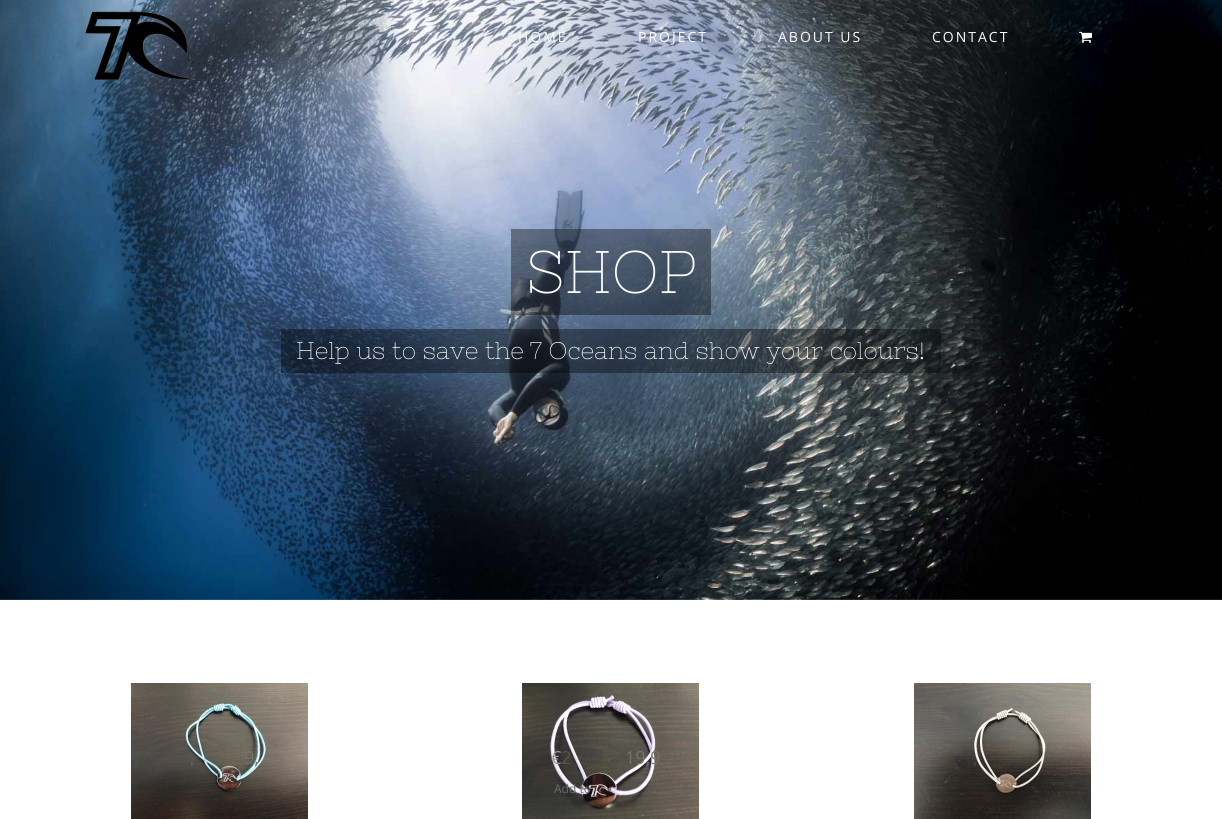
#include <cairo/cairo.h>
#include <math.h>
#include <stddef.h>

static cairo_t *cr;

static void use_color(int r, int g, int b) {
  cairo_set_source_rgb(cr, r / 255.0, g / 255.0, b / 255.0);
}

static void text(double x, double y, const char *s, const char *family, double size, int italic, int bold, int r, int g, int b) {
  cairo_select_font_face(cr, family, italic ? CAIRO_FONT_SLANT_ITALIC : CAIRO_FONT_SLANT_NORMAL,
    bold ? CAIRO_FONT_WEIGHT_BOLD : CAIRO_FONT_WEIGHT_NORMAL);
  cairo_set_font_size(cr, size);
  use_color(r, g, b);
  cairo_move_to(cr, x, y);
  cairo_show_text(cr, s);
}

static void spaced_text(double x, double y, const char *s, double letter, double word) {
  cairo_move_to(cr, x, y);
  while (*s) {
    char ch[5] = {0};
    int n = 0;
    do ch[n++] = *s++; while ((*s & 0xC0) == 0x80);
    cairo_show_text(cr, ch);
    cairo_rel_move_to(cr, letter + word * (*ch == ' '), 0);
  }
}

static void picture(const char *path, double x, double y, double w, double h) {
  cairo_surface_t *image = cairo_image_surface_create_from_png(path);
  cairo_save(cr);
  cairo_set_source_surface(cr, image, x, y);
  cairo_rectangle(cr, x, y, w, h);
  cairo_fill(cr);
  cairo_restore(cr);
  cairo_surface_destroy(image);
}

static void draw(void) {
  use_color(255, 255, 255);
  cairo_paint(cr);
  picture("img_03.png", 0, 0, 1222, 600);
  picture("img_01.png", 85, 11, 111, 69);
  picture("img_02.png", 1079, 31, 13, 12);
  cairo_set_source_rgba(cr, 0, 0, 0, 0.39);
  cairo_rectangle(cr, 511, 229, 200, 86);
  cairo_fill(cr);
  cairo_rectangle(cr, 281, 329, 660, 44);
  cairo_fill(cr);
  picture("img_04.png", 131, 683, 177, 136);
  picture("img_05.png", 522, 683, 177, 136);
  picture("img_06.png", 914, 683, 177, 136);
  cairo_select_font_face(cr, "Open Sans", CAIRO_FONT_SLANT_NORMAL, CAIRO_FONT_WEIGHT_NORMAL);
  cairo_set_font_size(cr, 14);
  use_color(250, 251, 251);
  spaced_text(518, 42, "HOME", 2, 0);
  spaced_text(638, 42, "PROJECT", 2, 0);
  spaced_text(778, 42, "ABOUT US", 2, 0);
  spaced_text(932, 42, "CONTACT", 2, 0);
  text(526, 293, "SHOP", "Nixie One", 60, 0, 0, 250, 251, 251);
  text(296, 359, "Help us to save the 7 Oceans and show your colours!", "Nixie One", 24, 0, 0, 250, 251, 251);
  text(190, 764, ",", "Open Sans", 18, 0, 0, 95, 98, 92);
  text(244, 764, "9,", "Open Sans", 18, 0, 0, 117, 115, 106);
  text(551, 764, "€", "Open Sans", 18, 0, 0, 154, 150, 155);
  text(561, 764, "2", "Open Sans", 18, 0, 0, 85, 82, 78);
  text(625, 764, "19,9", "Open Sans", 18, 0, 0, 117, 115, 106);
  text(554, 793, "Add to", "Open Sans", 12, 0, 0, 108, 105, 108);
  text(973, 764, ",", "Open Sans", 18, 0, 0, 76, 72, 67);
}

int main(void) {
  cairo_surface_t *surface = cairo_image_surface_create(CAIRO_FORMAT_RGB24, 1222, 819);
  cr = cairo_create(surface);
  cairo_font_options_t *options = cairo_font_options_create();
  cairo_font_options_set_hint_metrics(options, CAIRO_HINT_METRICS_OFF);
  cairo_font_options_set_hint_style(options, CAIRO_HINT_STYLE_NONE);
  cairo_set_font_options(cr, options);
  cairo_set_miter_limit(cr, 4);
  draw();
  cairo_surface_write_to_png(surface, "out.png");
  cairo_font_options_destroy(options);
  cairo_destroy(cr);
  cairo_surface_destroy(surface);
  return 0;
}
